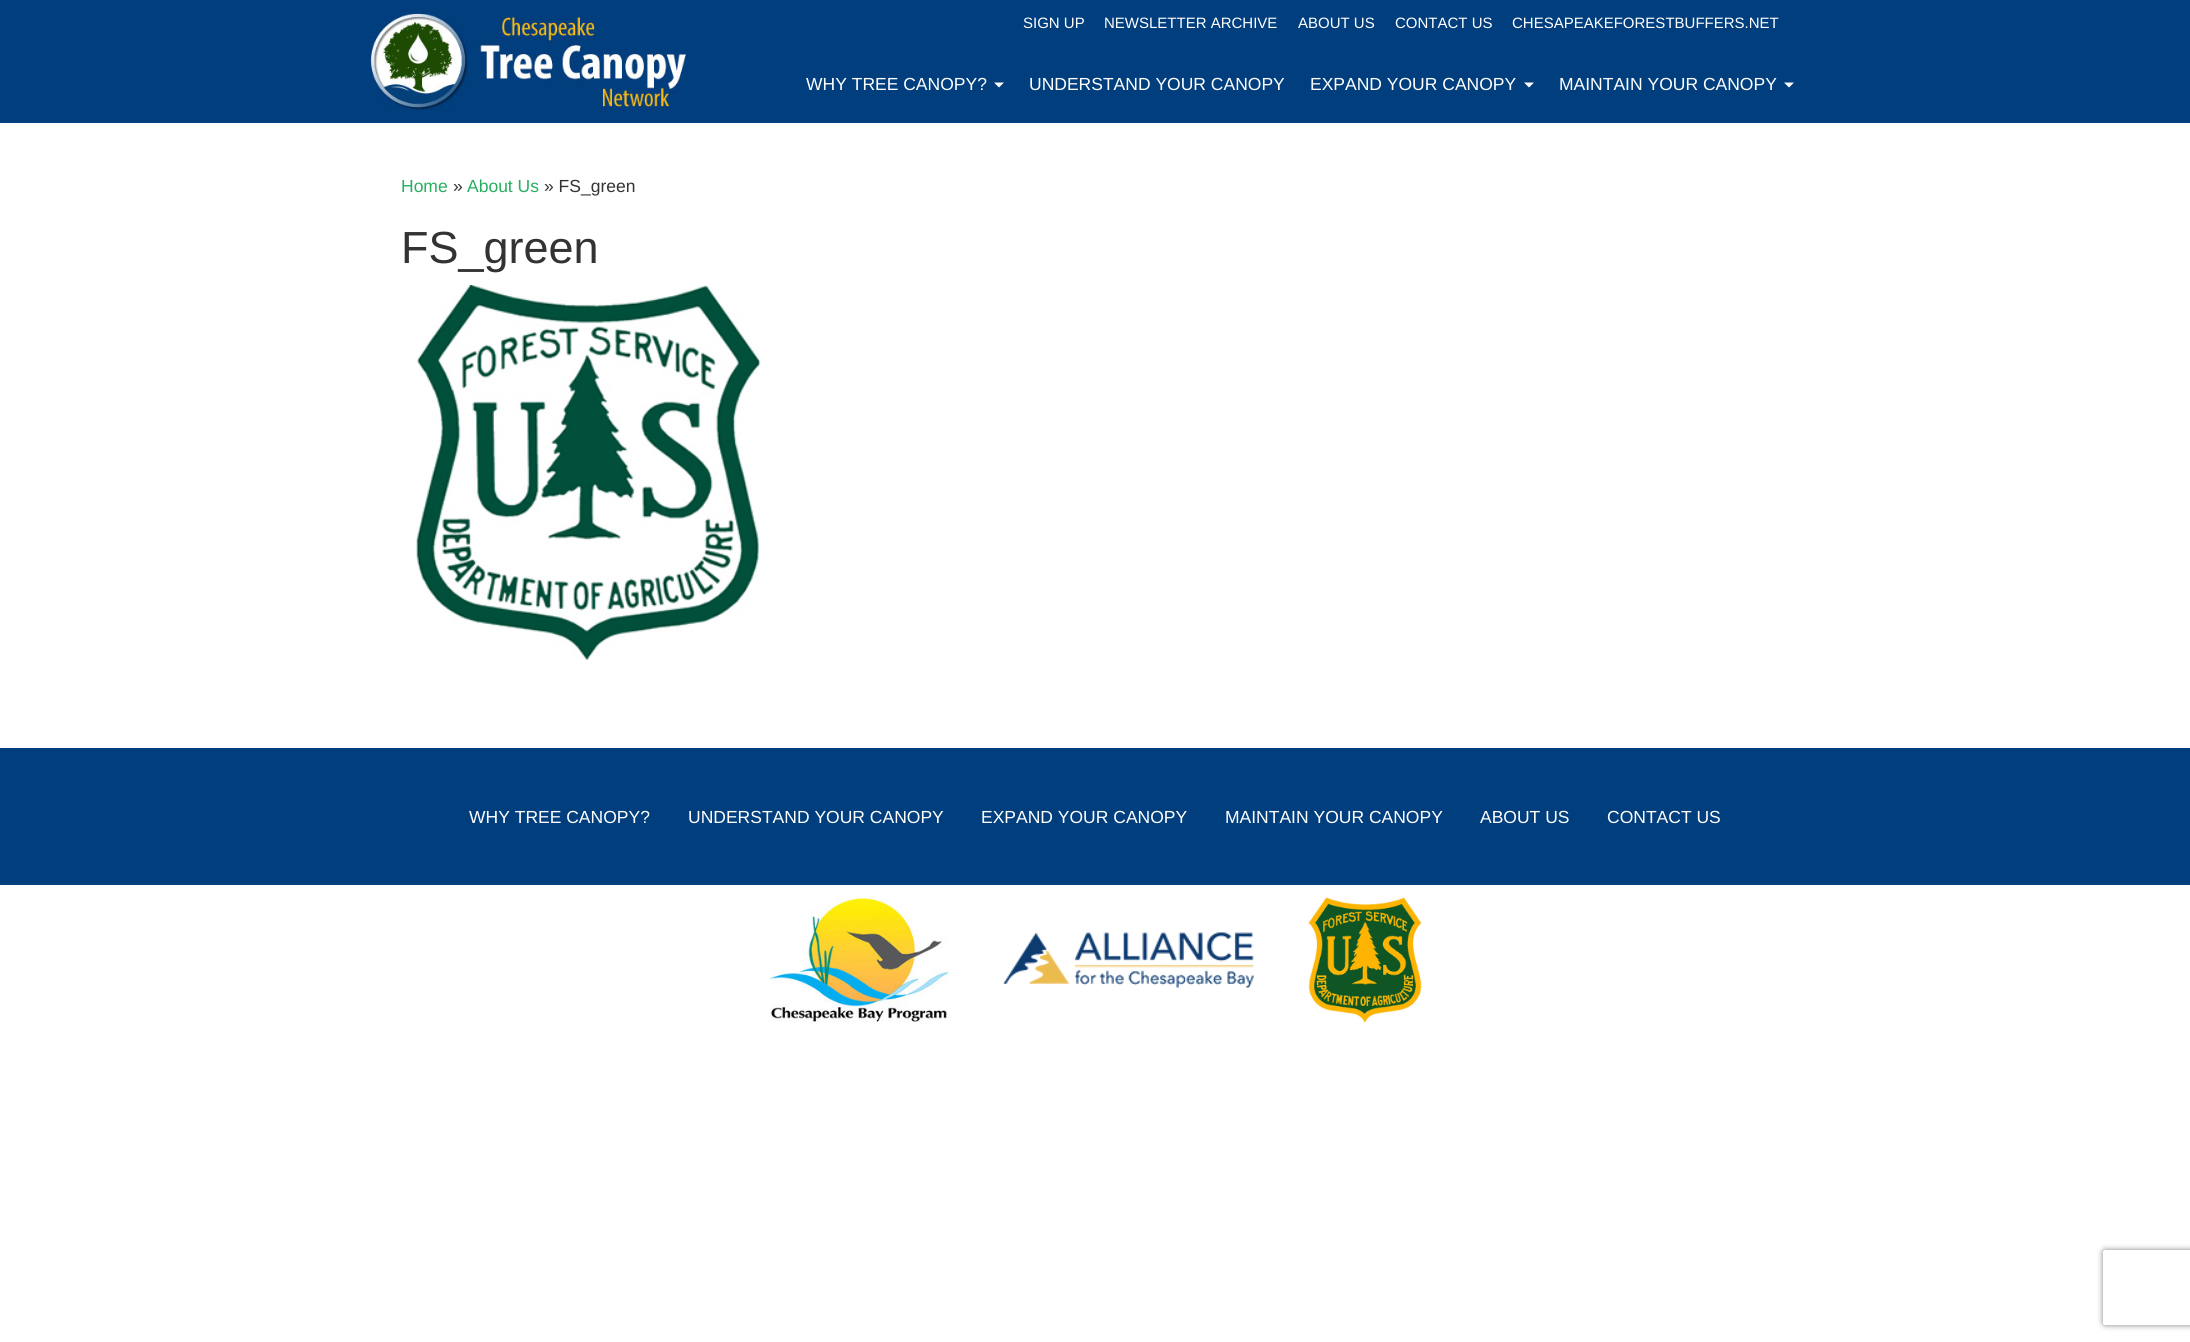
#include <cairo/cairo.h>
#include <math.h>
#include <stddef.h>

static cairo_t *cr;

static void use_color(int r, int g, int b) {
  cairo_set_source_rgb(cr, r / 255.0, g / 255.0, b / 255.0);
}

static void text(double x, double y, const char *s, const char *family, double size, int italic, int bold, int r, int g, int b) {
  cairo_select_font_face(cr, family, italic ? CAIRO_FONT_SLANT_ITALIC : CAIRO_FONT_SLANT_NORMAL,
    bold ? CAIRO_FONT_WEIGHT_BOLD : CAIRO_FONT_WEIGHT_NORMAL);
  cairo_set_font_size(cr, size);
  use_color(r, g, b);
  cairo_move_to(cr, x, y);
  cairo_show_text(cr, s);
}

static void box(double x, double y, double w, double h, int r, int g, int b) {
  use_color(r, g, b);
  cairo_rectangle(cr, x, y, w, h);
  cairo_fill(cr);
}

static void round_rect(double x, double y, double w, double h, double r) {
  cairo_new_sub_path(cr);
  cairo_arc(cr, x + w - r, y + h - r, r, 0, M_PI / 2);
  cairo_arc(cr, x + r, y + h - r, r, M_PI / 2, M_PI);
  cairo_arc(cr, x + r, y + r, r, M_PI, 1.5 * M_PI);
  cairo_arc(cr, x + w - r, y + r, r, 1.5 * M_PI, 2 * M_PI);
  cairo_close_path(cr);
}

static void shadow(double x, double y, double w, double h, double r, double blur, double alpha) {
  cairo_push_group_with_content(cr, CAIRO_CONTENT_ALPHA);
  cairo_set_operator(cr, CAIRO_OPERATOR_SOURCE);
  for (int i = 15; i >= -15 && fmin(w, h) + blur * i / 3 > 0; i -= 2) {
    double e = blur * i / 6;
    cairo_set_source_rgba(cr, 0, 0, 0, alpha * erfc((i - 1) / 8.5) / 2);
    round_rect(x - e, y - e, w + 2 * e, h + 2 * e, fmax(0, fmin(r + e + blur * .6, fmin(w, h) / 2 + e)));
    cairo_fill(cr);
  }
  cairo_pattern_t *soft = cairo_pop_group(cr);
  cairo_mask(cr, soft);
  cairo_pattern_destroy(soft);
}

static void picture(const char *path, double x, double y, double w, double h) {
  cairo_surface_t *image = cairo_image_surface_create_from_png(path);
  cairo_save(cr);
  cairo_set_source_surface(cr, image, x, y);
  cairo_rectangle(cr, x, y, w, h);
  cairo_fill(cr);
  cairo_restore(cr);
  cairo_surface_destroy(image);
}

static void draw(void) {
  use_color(255, 255, 255);
  cairo_paint(cr);
  box(0, 0, 2190, 123, 1, 62, 125);
  picture("img_01.png", 370, 13, 316, 98);
  use_color(255, 255, 255);
  cairo_new_path(cr);
  cairo_move_to(cr, 994, 82.5);
  cairo_line_to(cr, 1004, 82.5);
  cairo_line_to(cr, 999, 87.5);
  cairo_close_path(cr);
  cairo_fill(cr);
  cairo_new_path(cr);
  cairo_move_to(cr, 1524, 82.5);
  cairo_line_to(cr, 1534, 82.5);
  cairo_line_to(cr, 1529, 87.5);
  cairo_close_path(cr);
  cairo_fill(cr);
  cairo_new_path(cr);
  cairo_move_to(cr, 1784, 82.5);
  cairo_line_to(cr, 1794, 82.5);
  cairo_line_to(cr, 1789, 87.5);
  cairo_close_path(cr);
  cairo_fill(cr);
  picture("img_02.png", 416, 285, 345, 375);
  box(0, 748, 2190, 137, 1, 62, 125);
  picture("img_03.png", 769, 897, 180, 125);
  picture("img_04.png", 1003, 932, 251, 56);
  picture("img_05.png", 1308, 897, 114, 126);
  cairo_save(cr);
  cairo_set_fill_rule(cr, CAIRO_FILL_RULE_EVEN_ODD);
  cairo_new_path(cr);
  cairo_move_to(cr, 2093, 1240);
  cairo_line_to(cr, 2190, 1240);
  cairo_line_to(cr, 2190, 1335);
  cairo_line_to(cr, 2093, 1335);
  cairo_close_path(cr);
  cairo_move_to(cr, 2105.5, 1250);
  cairo_line_to(cr, 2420.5, 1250);
  cairo_curve_to(cr, 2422, 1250, 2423, 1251, 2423, 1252.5);
  cairo_line_to(cr, 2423, 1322.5);
  cairo_curve_to(cr, 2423, 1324, 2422, 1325, 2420.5, 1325);
  cairo_line_to(cr, 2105.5, 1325);
  cairo_curve_to(cr, 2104, 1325, 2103, 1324, 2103, 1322.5);
  cairo_line_to(cr, 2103, 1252.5);
  cairo_curve_to(cr, 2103, 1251, 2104, 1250, 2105.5, 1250);
  cairo_close_path(cr);
  cairo_clip(cr);
  use_color(128, 128, 128);
  shadow(2103, 1250, 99, 75, 2.5, 3, 1);
  cairo_restore(cr);
  text(1023, 28, "SIGN UP", "Liberation Sans", 15, 0, 0, 255, 255, 255);
  text(1104, 28, "NEWSLETTER ARCHIVE", "Liberation Sans", 15, 0, 0, 255, 255, 255);
  text(1298, 28, "ABOUT US", "Liberation Sans", 15, 0, 0, 255, 255, 255);
  text(1395, 28, "CONTACT US", "Liberation Sans", 15, 0, 0, 255, 255, 255);
  text(1512, 28, "CHESAPEAKEFORESTBUFFERS.NET", "Liberation Sans", 15, 0, 0, 255, 255, 255);
  text(806, 90, "WHY TREE CANOPY?", "Liberation Sans", 17.5, 0, 0, 255, 255, 255);
  text(1029, 90, "UNDERSTAND YOUR CANOPY", "Liberation Sans", 17.5, 0, 0, 255, 255, 255);
  text(1310, 90, "EXPAND YOUR CANOPY", "Liberation Sans", 17.5, 0, 0, 255, 255, 255);
  text(1559, 90, "MAINTAIN YOUR CANOPY", "Liberation Sans", 17.5, 0, 0, 255, 255, 255);
  text(401, 192, "Home", "Liberation Sans", 17.5, 0, 0, 39, 174, 96);
  text(453, 192, "»", "Liberation Sans", 17.5, 0, 0, 51, 51, 51);
  text(467, 192, "About Us", "Liberation Sans", 17.5, 0, 0, 39, 174, 96);
  text(544, 192, "» FS_green", "Liberation Sans", 17.5, 0, 0, 51, 51, 51);
  text(401, 263, "FS_green", "Liberation Sans", 45, 0, 0, 51, 51, 51);
  text(469, 823, "WHY TREE CANOPY?", "Liberation Sans", 17.5, 0, 0, 255, 255, 255);
  text(688, 823, "UNDERSTAND YOUR CANOPY", "Liberation Sans", 17.5, 0, 0, 255, 255, 255);
  text(981, 823, "EXPAND YOUR CANOPY", "Liberation Sans", 17.5, 0, 0, 255, 255, 255);
  text(1225, 823, "MAINTAIN YOUR CANOPY", "Liberation Sans", 17.5, 0, 0, 255, 255, 255);
  text(1480, 823, "ABOUT US", "Liberation Sans", 17.5, 0, 0, 255, 255, 255);
  text(1607, 823, "CONTACT US", "Liberation Sans", 17.5, 0, 0, 255, 255, 255);
}

int main(void) {
  cairo_surface_t *surface = cairo_image_surface_create(CAIRO_FORMAT_RGB24, 2190, 1342);
  cr = cairo_create(surface);
  cairo_font_options_t *options = cairo_font_options_create();
  cairo_font_options_set_hint_metrics(options, CAIRO_HINT_METRICS_OFF);
  cairo_font_options_set_hint_style(options, CAIRO_HINT_STYLE_NONE);
  cairo_set_font_options(cr, options);
  cairo_set_miter_limit(cr, 4);
  draw();
  cairo_surface_write_to_png(surface, "out.png");
  cairo_font_options_destroy(options);
  cairo_destroy(cr);
  cairo_surface_destroy(surface);
  return 0;
}
